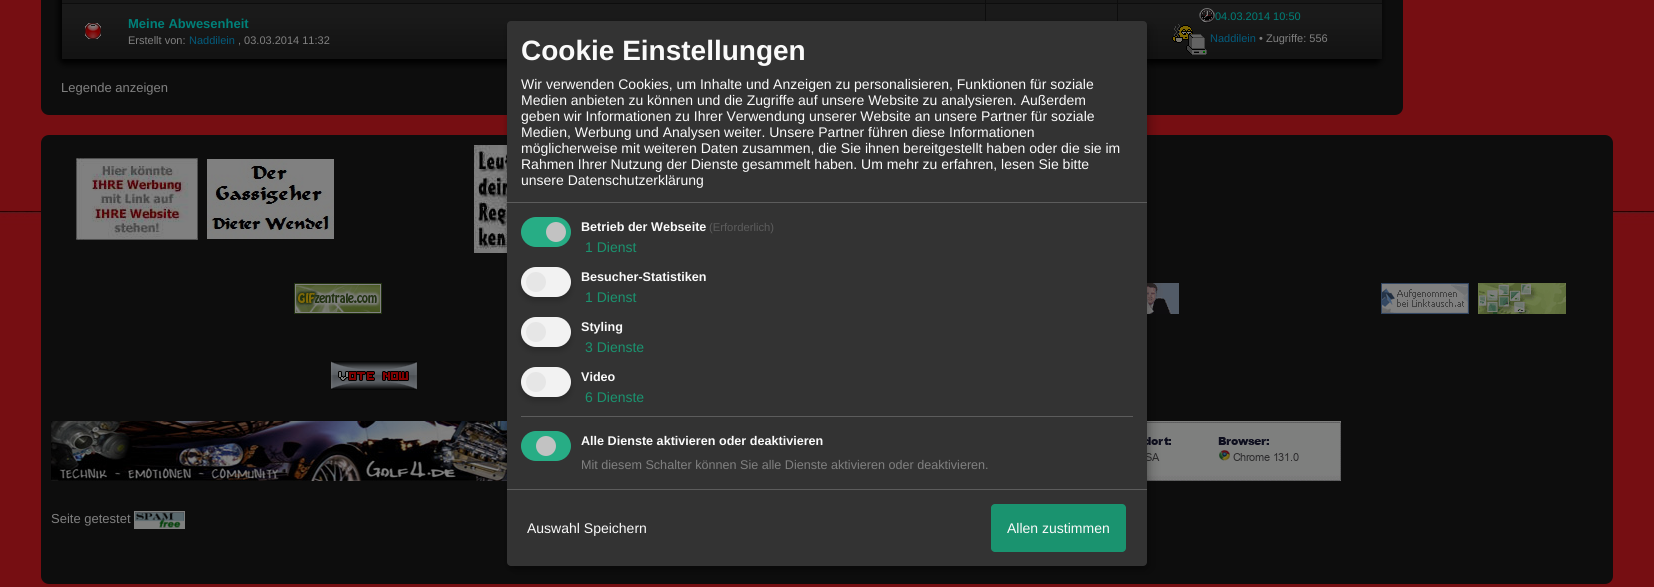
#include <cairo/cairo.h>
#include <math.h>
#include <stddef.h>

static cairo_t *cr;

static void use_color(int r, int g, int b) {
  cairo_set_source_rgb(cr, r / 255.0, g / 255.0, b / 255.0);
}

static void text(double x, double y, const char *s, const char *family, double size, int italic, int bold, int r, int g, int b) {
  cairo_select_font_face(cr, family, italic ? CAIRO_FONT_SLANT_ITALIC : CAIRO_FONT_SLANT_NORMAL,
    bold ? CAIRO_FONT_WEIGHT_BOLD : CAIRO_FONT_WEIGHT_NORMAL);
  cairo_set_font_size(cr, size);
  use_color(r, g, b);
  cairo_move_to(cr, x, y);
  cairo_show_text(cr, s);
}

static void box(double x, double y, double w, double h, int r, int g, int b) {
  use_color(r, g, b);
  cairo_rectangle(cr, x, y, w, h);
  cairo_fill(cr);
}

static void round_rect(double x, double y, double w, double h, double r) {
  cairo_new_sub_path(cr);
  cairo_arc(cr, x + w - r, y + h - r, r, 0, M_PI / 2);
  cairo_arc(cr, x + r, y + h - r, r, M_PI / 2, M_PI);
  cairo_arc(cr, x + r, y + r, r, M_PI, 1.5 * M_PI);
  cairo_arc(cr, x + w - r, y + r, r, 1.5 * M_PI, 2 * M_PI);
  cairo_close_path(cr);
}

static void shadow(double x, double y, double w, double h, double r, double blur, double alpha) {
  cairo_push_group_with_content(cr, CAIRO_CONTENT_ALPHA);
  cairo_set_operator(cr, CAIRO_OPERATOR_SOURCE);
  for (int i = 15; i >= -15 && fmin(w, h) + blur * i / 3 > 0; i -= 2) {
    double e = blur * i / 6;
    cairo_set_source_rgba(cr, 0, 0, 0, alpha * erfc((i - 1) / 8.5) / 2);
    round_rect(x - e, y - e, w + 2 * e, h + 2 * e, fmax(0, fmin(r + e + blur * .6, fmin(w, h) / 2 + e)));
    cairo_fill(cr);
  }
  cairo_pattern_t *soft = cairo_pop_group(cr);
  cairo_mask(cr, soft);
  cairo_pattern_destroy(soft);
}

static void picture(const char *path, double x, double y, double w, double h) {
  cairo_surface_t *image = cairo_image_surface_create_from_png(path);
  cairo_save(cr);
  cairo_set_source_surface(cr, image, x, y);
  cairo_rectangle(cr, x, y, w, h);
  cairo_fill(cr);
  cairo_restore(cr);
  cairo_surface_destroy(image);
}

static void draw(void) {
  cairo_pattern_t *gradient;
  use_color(255, 255, 255);
  cairo_paint(cr);
  picture("img_01.png", 0, 0, 1654, 587);
  use_color(13, 13, 13);
  round_rect(41, -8, 1362, 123, 8);
  cairo_fill(cr);
  use_color(0, 0, 0);
  shadow(59, -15, 1322, 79, 6, 3, 1);
  gradient = cairo_pattern_create_linear(260, -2.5, 260, -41);
  cairo_pattern_add_color_stop_rgba(gradient, 0, 0.09, 0.09, 0.09, 1);
  cairo_pattern_add_color_stop_rgba(gradient, 1, 0.102, 0.102, 0.102, 1);
  cairo_set_source(cr, gradient);
  cairo_pattern_destroy(gradient);
  cairo_rectangle(cr, 62, 0, 1320, 3);
  cairo_fill(cr);
  box(62, 3, 1320, 1, 13, 13, 13);
  box(985, 0, 1, 3, 13, 13, 13);
  box(1117, 0, 1, 3, 13, 13, 13);
  gradient = cairo_pattern_create_linear(260, 54, 260, 15);
  cairo_pattern_add_color_stop_rgba(gradient, 0, 0.075, 0.075, 0.075, 1);
  cairo_pattern_add_color_stop_rgba(gradient, 1, 0.102, 0.102, 0.102, 1);
  cairo_set_source(cr, gradient);
  cairo_pattern_destroy(gradient);
  cairo_rectangle(cr, 62, 4, 1320, 55);
  cairo_fill(cr);
  picture("img_02.png", 85, 23, 16, 16);
  box(985, 3, 1, 18, 13, 13, 13);
  box(1117, 3, 1, 18, 13, 13, 13);
  picture("img_03.png", 1199, 8, 16, 15);
  picture("img_04.png", 1172, 24, 35, 31);
  round_rect(41, 135, 1572, 449, 8);
  cairo_fill(cr);
  picture("img_05.png", 76, 158, 122, 82);
  picture("img_06.png", 207, 159, 127, 80);
  picture("img_07.png", 474, 145, 33, 108);
  picture("img_08.png", 294, 283, 88, 31);
  picture("img_09.png", 1147, 283, 32, 31);
  picture("img_10.png", 1381, 283, 88, 31);
  picture("img_11.png", 1478, 283, 88, 31);
  picture("img_12.png", 331, 361, 86, 29);
  picture("img_13.png", 51, 421, 456, 60);
  picture("img_14.png", 1147, 421, 194, 60);
  picture("img_15.png", 134, 511, 51, 18);
  use_color(0, 0, 0);
  shadow(512, 26, 640, 545, 4, 5, 0.19);
  shadow(507, 25, 640, 545, 4, 3, 0.2);
  use_color(51, 51, 51);
  round_rect(507, 21, 640, 545, 4);
  cairo_fill(cr);
  box(507, 202, 640, 1, 92, 92, 92);
  use_color(39, 173, 133);
  round_rect(521, 217, 50, 30, 15);
  cairo_fill(cr);
  use_color(194, 194, 194);
  cairo_arc(cr, 556, 232, 10, 0, 2 * M_PI);
  cairo_fill(cr);
  use_color(0, 0, 0);
  shadow(521, 271, 50, 30, 15, 3, 0.2);
  use_color(242, 242, 242);
  round_rect(521, 267, 50, 30, 15);
  cairo_fill(cr);
  use_color(230, 230, 230);
  cairo_arc(cr, 536, 282, 10, 0, 2 * M_PI);
  cairo_fill(cr);
  use_color(0, 0, 0);
  shadow(521, 321, 50, 30, 15, 3, 0.2);
  use_color(242, 242, 242);
  round_rect(521, 317, 50, 30, 15);
  cairo_fill(cr);
  use_color(230, 230, 230);
  cairo_arc(cr, 536, 332, 10, 0, 2 * M_PI);
  cairo_fill(cr);
  use_color(0, 0, 0);
  shadow(521, 371, 50, 30, 15, 3, 0.2);
  use_color(242, 242, 242);
  round_rect(521, 367, 50, 30, 15);
  cairo_fill(cr);
  use_color(230, 230, 230);
  cairo_arc(cr, 536, 382, 10, 0, 2 * M_PI);
  cairo_fill(cr);
  box(521, 416, 612, 1, 92, 92, 92);
  use_color(39, 173, 133);
  round_rect(521, 431, 50, 30, 15);
  cairo_fill(cr);
  use_color(194, 194, 194);
  cairo_arc(cr, 546, 446, 10, 0, 2 * M_PI);
  cairo_fill(cr);
  box(507, 489, 640, 1, 92, 92, 92);
  use_color(26, 147, 111);
  round_rect(991, 504, 135, 48, 4);
  cairo_fill(cr);
  text(128, 28, "Meine Abwesenheit", "Liberation Sans", 13, 0, 1, 0, 128, 121);
  text(128, 44, "Erstellt von:", "Liberation Sans", 11, 0, 0, 128, 128, 128);
  text(189, 44, "Naddilein", "Liberation Sans", 11, 0, 0, 3, 91, 124);
  text(238, 44, ", 03.03.2014 11:32", "Liberation Sans", 11, 0, 0, 128, 128, 128);
  text(1215, 20, "04.03.2014 10:50", "Liberation Sans", 11, 0, 0, 0, 128, 121);
  text(1210, 42, "Naddilein", "Liberation Sans", 11, 0, 0, 3, 91, 124);
  text(1259, 42, "• Zugriffe: 556", "Liberation Sans", 11, 0, 0, 128, 128, 128);
  text(61, 92, "Legende anzeigen", "Liberation Sans", 13, 0, 0, 128, 128, 128);
  text(51, 523, "Seite getestet", "Liberation Sans", 13, 0, 0, 128, 128, 128);
  text(521, 60, "Cookie Einstellungen", "Liberation Sans", 28, 0, 1, 250, 250, 250);
  text(521, 89, "Wir verwenden Cookies, um Inhalte und Anzeigen zu personalisieren, Funktionen für soziale", "Liberation Sans", 14, 0, 0, 250, 250, 250);
  text(521, 105, "Medien anbieten zu können und die Zugriffe auf unsere Website zu analysieren. Außerdem", "Liberation Sans", 14, 0, 0, 250, 250, 250);
  text(521, 121, "geben wir Informationen zu Ihrer Verwendung unserer Website an unsere Partner für soziale", "Liberation Sans", 14, 0, 0, 250, 250, 250);
  text(521, 137, "Medien, Werbung und Analysen weiter. Unsere Partner führen diese Informationen", "Liberation Sans", 14, 0, 0, 250, 250, 250);
  text(521, 153, "möglicherweise mit weiteren Daten zusammen, die Sie ihnen bereitgestellt haben oder die sie im", "Liberation Sans", 14, 0, 0, 250, 250, 250);
  text(521, 169, "Rahmen Ihrer Nutzung der Dienste gesammelt haben. Um mehr zu erfahren, lesen Sie bitte", "Liberation Sans", 14, 0, 0, 250, 250, 250);
  text(521, 185, "unsere Datenschutzerklärung", "Liberation Sans", 14, 0, 0, 250, 250, 250);
  text(581, 231, "Betrieb der Webseite", "Liberation Sans", 12.6, 0, 1, 250, 250, 250);
  text(709, 231, "(Erforderlich)", "Liberation Sans", 11.25, 0, 0, 92, 92, 92);
  text(585, 252, "1 Dienst", "Liberation Sans", 14, 0, 0, 26, 147, 111);
  text(581, 281, "Besucher-Statistiken", "Liberation Sans", 12.6, 0, 1, 250, 250, 250);
  text(585, 302, "1 Dienst", "Liberation Sans", 14, 0, 0, 26, 147, 111);
  text(581, 331, "Styling", "Liberation Sans", 12.6, 0, 1, 250, 250, 250);
  text(585, 352, "3 Dienste", "Liberation Sans", 14, 0, 0, 26, 147, 111);
  text(581, 381, "Video", "Liberation Sans", 12.6, 0, 1, 250, 250, 250);
  text(585, 402, "6 Dienste", "Liberation Sans", 14, 0, 0, 26, 147, 111);
  text(581, 445, "Alle Dienste aktivieren oder deaktivieren", "Liberation Sans", 12.6, 0, 1, 250, 250, 250);
  text(581, 469, "Mit diesem Schalter können Sie alle Dienste aktivieren oder deaktivieren.", "Liberation Sans", 12.6, 0, 0, 128, 128, 128);
  text(527, 533, "Auswahl Speichern", "Liberation Sans", 14, 0, 0, 250, 250, 250);
  text(1007, 533, "Allen zustimmen", "Liberation Sans", 14, 0, 0, 250, 250, 250);
}

int main(void) {
  cairo_surface_t *surface = cairo_image_surface_create(CAIRO_FORMAT_RGB24, 1654, 587);
  cr = cairo_create(surface);
  cairo_font_options_t *options = cairo_font_options_create();
  cairo_font_options_set_hint_metrics(options, CAIRO_HINT_METRICS_OFF);
  cairo_font_options_set_hint_style(options, CAIRO_HINT_STYLE_NONE);
  cairo_set_font_options(cr, options);
  cairo_set_miter_limit(cr, 4);
  draw();
  cairo_surface_write_to_png(surface, "out.png");
  cairo_font_options_destroy(options);
  cairo_destroy(cr);
  cairo_surface_destroy(surface);
  return 0;
}
